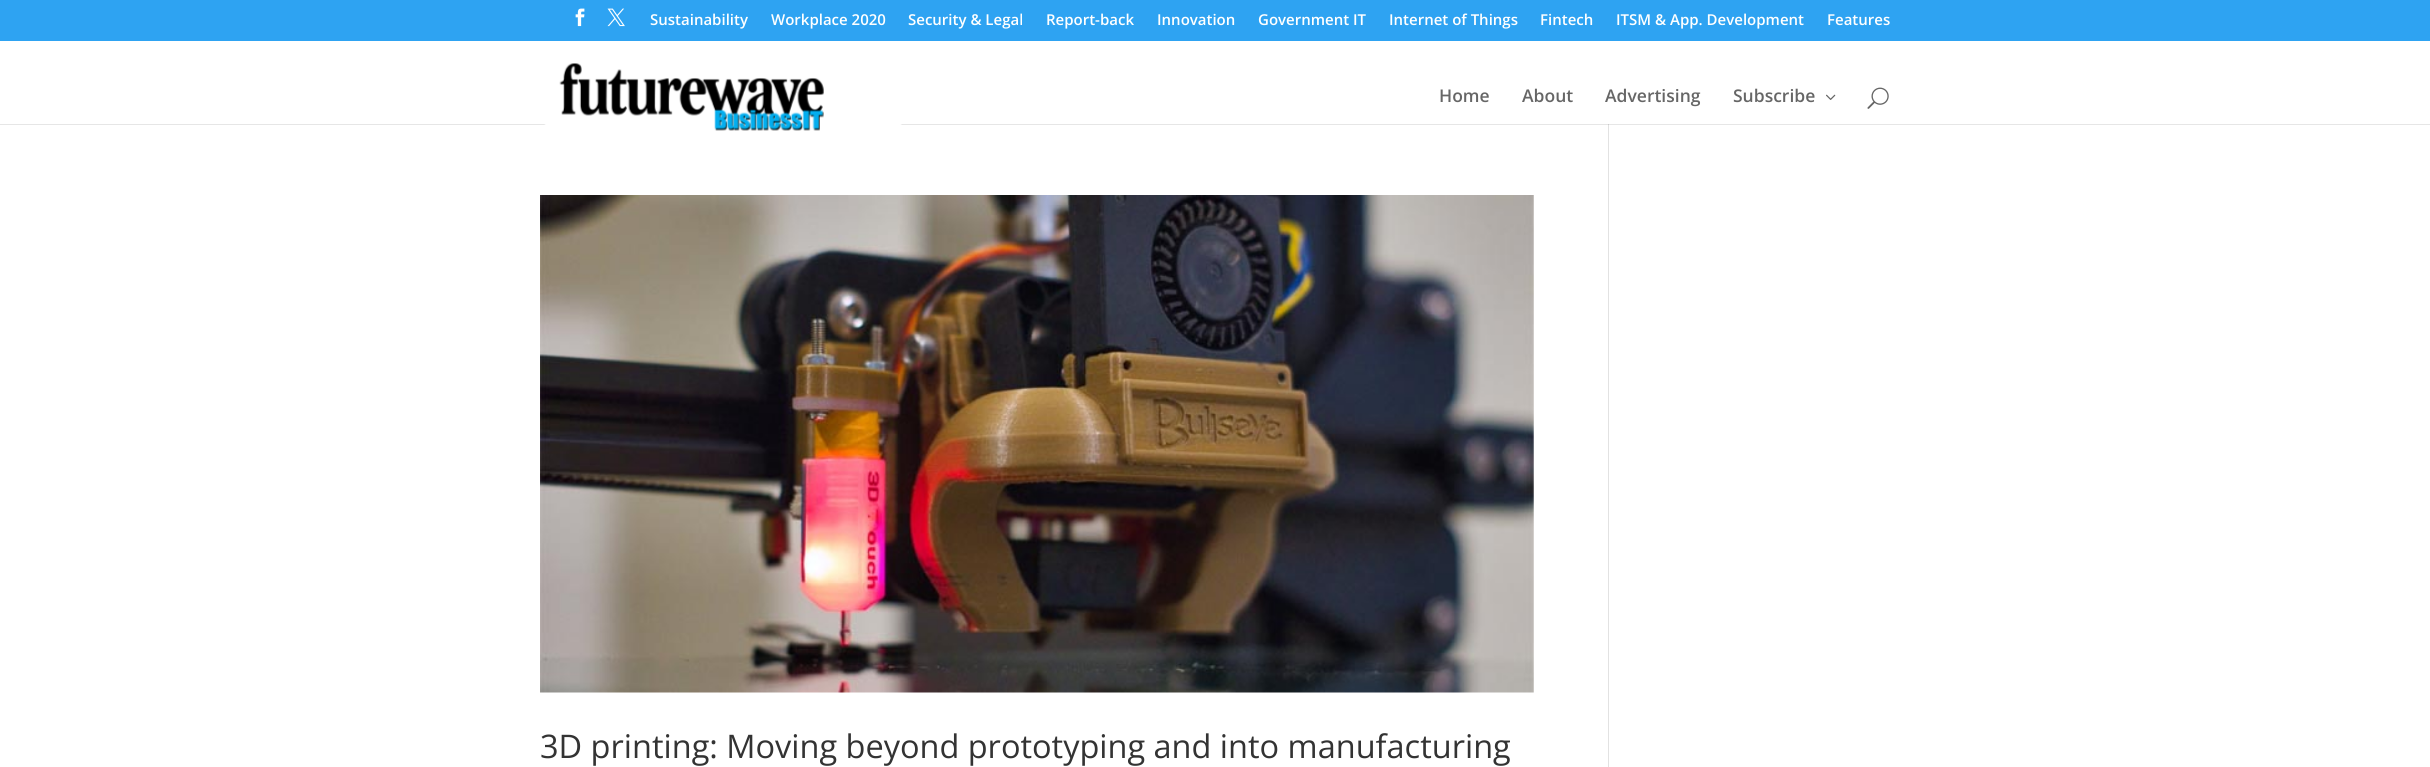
#include <cairo/cairo.h>
#include <math.h>
#include <stddef.h>

static cairo_t *cr;

static void use_color(int r, int g, int b) {
  cairo_set_source_rgb(cr, r / 255.0, g / 255.0, b / 255.0);
}

static void text(double x, double y, const char *s, const char *family, double size, int italic, int bold, int r, int g, int b) {
  cairo_select_font_face(cr, family, italic ? CAIRO_FONT_SLANT_ITALIC : CAIRO_FONT_SLANT_NORMAL,
    bold ? CAIRO_FONT_WEIGHT_BOLD : CAIRO_FONT_WEIGHT_NORMAL);
  cairo_set_font_size(cr, size);
  use_color(r, g, b);
  cairo_move_to(cr, x, y);
  cairo_show_text(cr, s);
}

static void box(double x, double y, double w, double h, int r, int g, int b) {
  use_color(r, g, b);
  cairo_rectangle(cr, x, y, w, h);
  cairo_fill(cr);
}

static void picture(const char *path, double x, double y, double w, double h) {
  cairo_surface_t *image = cairo_image_surface_create_from_png(path);
  cairo_save(cr);
  cairo_set_source_surface(cr, image, x, y);
  cairo_rectangle(cr, x, y, w, h);
  cairo_fill(cr);
  cairo_restore(cr);
  cairo_surface_destroy(image);
}

static void draw(void) {
  use_color(255, 255, 255);
  cairo_paint(cr);
  box(0, 124, 2430, 1, 230, 230, 230);
  box(0, 0, 2430, 41, 46, 163, 242);
  picture("img_01.png", 575, 8, 10, 19);
  picture("img_02.png", 607, 8, 18, 19);
  box(1608, 123, 1, 644, 226, 226, 226);
  box(1608, 123, 1, 1, 255, 255, 255);
  picture("img_03.png", 544, 63, 358, 68);
  picture("img_04.png", 1826, 94, 10, 6);
  picture("img_05.png", 1867, 87, 22, 22);
  picture("img_06.png", 540, 195, 994, 498);
  box(1608, 124, 1, 1, 203, 203, 203);
  text(650, 25, "Sustainability", "Open Sans SemiBold", 15, 0, 0, 255, 255, 255);
  text(771, 25, "Workplace 2020", "Open Sans SemiBold", 15, 0, 0, 255, 255, 255);
  text(908, 25, "Security & Legal", "Open Sans SemiBold", 15, 0, 0, 255, 255, 255);
  text(1046, 25, "Report-back", "Open Sans SemiBold", 15, 0, 0, 255, 255, 255);
  text(1157, 25, "Innovation", "Open Sans SemiBold", 15, 0, 0, 255, 255, 255);
  text(1258, 25, "Government IT", "Open Sans SemiBold", 15, 0, 0, 255, 255, 255);
  text(1389, 25, "Internet of Things", "Open Sans SemiBold", 15, 0, 0, 255, 255, 255);
  text(1540, 25, "Fintech", "Open Sans SemiBold", 15, 0, 0, 255, 255, 255);
  text(1616, 25, "ITSM & App. Development", "Open Sans SemiBold", 15, 0, 0, 255, 255, 255);
  text(1827, 25, "Features", "Open Sans SemiBold", 15, 0, 0, 255, 255, 255);
  text(1439, 102, "Home", "Open Sans SemiBold", 17.5, 0, 0, 102, 102, 102);
  text(1522, 102, "About", "Open Sans SemiBold", 17.5, 0, 0, 102, 102, 102);
  text(1605, 102, "Advertising", "Open Sans SemiBold", 17.5, 0, 0, 102, 102, 102);
  text(1733, 102, "Subscribe", "Open Sans SemiBold", 17.5, 0, 0, 102, 102, 102);
  text(540, 758, "3D printing: Moving beyond prototyping and into manufacturing", "Open Sans", 32.5, 0, 0, 51, 51, 51);
}

int main(void) {
  cairo_surface_t *surface = cairo_image_surface_create(CAIRO_FORMAT_RGB24, 2430, 767);
  cr = cairo_create(surface);
  cairo_font_options_t *options = cairo_font_options_create();
  cairo_font_options_set_hint_metrics(options, CAIRO_HINT_METRICS_OFF);
  cairo_font_options_set_hint_style(options, CAIRO_HINT_STYLE_NONE);
  cairo_set_font_options(cr, options);
  cairo_set_miter_limit(cr, 4);
  draw();
  cairo_surface_write_to_png(surface, "out.png");
  cairo_font_options_destroy(options);
  cairo_destroy(cr);
  cairo_surface_destroy(surface);
  return 0;
}
